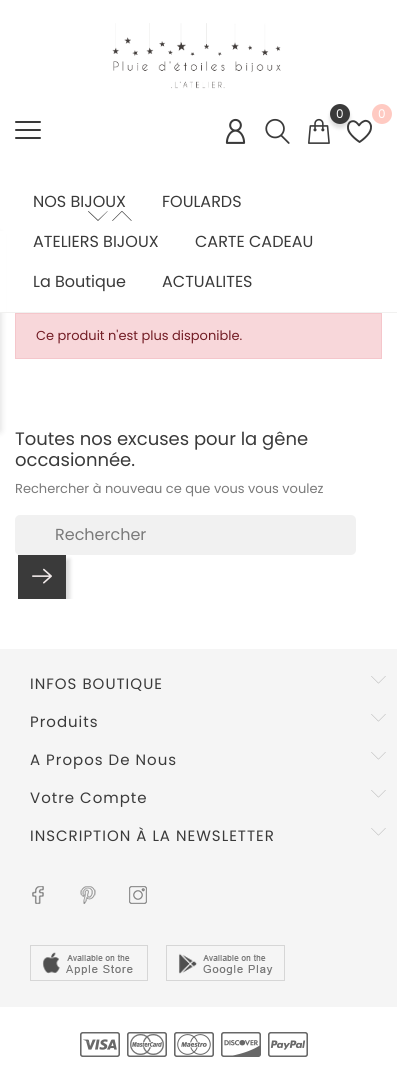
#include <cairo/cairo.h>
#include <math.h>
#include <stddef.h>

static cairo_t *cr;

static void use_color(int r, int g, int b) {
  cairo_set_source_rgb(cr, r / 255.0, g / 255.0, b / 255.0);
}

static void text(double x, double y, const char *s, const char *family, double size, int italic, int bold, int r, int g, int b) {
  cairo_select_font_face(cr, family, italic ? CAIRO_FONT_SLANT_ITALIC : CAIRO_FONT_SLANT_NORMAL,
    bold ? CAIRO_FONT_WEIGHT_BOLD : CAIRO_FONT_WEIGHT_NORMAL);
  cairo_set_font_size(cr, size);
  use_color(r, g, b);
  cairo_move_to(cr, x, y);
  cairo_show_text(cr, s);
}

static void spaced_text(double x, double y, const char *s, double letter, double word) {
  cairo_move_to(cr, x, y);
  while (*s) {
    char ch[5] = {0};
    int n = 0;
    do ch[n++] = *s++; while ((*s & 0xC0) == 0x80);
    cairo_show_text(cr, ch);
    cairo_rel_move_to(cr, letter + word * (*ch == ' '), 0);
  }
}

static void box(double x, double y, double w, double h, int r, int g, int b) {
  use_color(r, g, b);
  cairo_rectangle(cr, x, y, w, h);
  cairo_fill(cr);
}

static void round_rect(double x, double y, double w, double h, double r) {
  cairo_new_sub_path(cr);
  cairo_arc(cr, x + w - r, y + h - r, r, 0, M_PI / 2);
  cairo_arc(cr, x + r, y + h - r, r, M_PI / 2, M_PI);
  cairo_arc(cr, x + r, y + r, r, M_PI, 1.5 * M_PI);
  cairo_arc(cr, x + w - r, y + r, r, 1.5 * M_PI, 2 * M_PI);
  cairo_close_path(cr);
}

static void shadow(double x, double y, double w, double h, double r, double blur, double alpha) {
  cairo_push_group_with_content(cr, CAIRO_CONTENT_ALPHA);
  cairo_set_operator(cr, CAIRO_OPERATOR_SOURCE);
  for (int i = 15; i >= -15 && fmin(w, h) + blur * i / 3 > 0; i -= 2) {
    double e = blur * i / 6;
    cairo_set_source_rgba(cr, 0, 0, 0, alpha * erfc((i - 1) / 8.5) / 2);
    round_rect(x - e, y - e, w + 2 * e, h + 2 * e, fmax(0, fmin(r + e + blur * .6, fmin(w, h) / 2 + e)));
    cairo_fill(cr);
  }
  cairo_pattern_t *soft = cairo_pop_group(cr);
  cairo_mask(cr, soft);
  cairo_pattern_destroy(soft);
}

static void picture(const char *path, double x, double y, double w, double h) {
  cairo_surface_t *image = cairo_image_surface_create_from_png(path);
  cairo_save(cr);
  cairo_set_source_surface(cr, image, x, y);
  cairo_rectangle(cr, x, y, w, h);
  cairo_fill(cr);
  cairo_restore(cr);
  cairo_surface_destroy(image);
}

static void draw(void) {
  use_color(255, 255, 255);
  cairo_paint(cr);
  use_color(0, 0, 0);
  shadow(-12, 235, 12, 196, 0, 4, 0.16);
  box(0, 231, 6, 81, 255, 255, 255);
  box(0, 312, 397, 1, 241, 241, 240);
  picture("img_01.png", 112, 23, 169, 66);
  picture("img_02.png", 308, 118, 22, 26);
  use_color(0, 0, 0);
  shadow(330, 108, 20, 20, 10, 2, 0.14);
  use_color(58, 58, 58);
  cairo_arc(cr, 340, 114, 10, 0, 2 * M_PI);
  cairo_fill(cr);
  use_color(255, 202, 194);
  cairo_arc(cr, 382, 114, 10, 0, 2 * M_PI);
  cairo_fill(cr);
  picture("img_03.png", 347, 119, 25, 24);
  picture("img_04.png", 225, 118, 21, 26);
  picture("img_05.png", 265, 118, 25, 26);
  use_color(58, 58, 58);
  round_rect(15, 121, 26, 2, 1);
  cairo_fill(cr);
  round_rect(15, 129, 26, 2, 1);
  cairo_fill(cr);
  round_rect(15, 137, 26, 2, 1);
  cairo_fill(cr);
  cairo_new_path(cr);
  cairo_move_to(cr, 98, 221);
  cairo_line_to(cr, 107.5, 211.5);
  cairo_line_to(cr, 107.5, 211);
  cairo_line_to(cr, 98, 220);
  cairo_line_to(cr, 88.5, 211);
  cairo_line_to(cr, 88, 211.5);
  cairo_close_path(cr);
  cairo_fill(cr);
  picture("img_06.png", 112, 211, 20, 10);
  use_color(248, 215, 218);
  cairo_rectangle(cr, 15.5, 313.5, 366, 45);
  cairo_fill_preserve(cr);
  use_color(245, 198, 203);
  cairo_set_line_width(cr, 1);
  cairo_stroke(cr);
  cairo_save(cr);
  cairo_rectangle(cr, 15, 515, 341, 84);
  cairo_clip(cr);
  use_color(0, 0, 0);
  shadow(22, 559, 48, 44, 0, 2, 0.14);
  cairo_restore(cr);
  use_color(241, 241, 241);
  round_rect(15, 515, 341, 40, 5);
  cairo_fill(cr);
  box(18, 555, 48, 44, 58, 58, 58);
  picture("img_07.png", 32, 568, 20, 16);
  box(0, 649, 397, 358, 245, 245, 245);
  picture("img_08.png", 371, 676, 15, 8);
  picture("img_08.png", 371, 714, 15, 8);
  picture("img_08.png", 371, 752, 15, 8);
  picture("img_08.png", 371, 790, 15, 8);
  picture("img_08.png", 371, 828, 15, 8);
  picture("img_09.png", 32, 886, 12, 18);
  picture("img_10.png", 80, 886, 16, 18);
  picture("img_11.png", 129, 886, 18, 18);
  picture("img_12.png", 30, 945, 118, 36);
  picture("img_13.png", 166, 945, 119, 36);
  picture("img_14.png", 80, 1032, 228, 25);
  text(336, 118, "0", "Poppins", 12, 0, 0, 255, 255, 255);
  text(378, 118, "0", "Poppins", 12, 0, 0, 255, 255, 255);
  text(33, 207, "NOS BIJOUX", "Poppins", 16, 0, 0, 58, 58, 58);
  text(162, 207, "FOULARDS", "Poppins", 16, 0, 0, 58, 58, 58);
  text(33, 247, "ATELIERS BIJOUX", "Poppins", 16, 0, 0, 58, 58, 58);
  text(195, 247, "CARTE CADEAU", "Poppins", 16, 0, 0, 58, 58, 58);
  text(33, 287, "La Boutique", "Poppins", 16, 0, 0, 58, 58, 58);
  text(162, 287, "ACTUALITES", "Poppins", 16, 0, 0, 58, 58, 58);
  text(36, 340, "Ce produit n'est plus disponible.", "Poppins", 13, 0, 0, 114, 28, 36);
  text(15, 445, "Toutes nos excuses pour la gêne", "Poppins", 18, 0, 0, 58, 58, 58);
  text(15, 466, "occasionnée.", "Poppins", 18, 0, 0, 58, 58, 58);
  text(15, 493, "Rechercher à nouveau ce que vous vous voulez", "Poppins", 13, 0, 0, 122, 122, 122);
  text(55, 540, "Rechercher", "Poppins", 16, 0, 0, 122, 122, 122);
  cairo_set_font_size(cr, 15);
  use_color(58, 58, 58);
  spaced_text(30, 689, "INFOS BOUTIQUE", 1, 0);
  spaced_text(30, 727, "Produits", 1, 0);
  spaced_text(30, 765, "A Propos De Nous", 1, 0);
  spaced_text(30, 803, "Votre Compte", 1, 0);
  spaced_text(30, 841, "INSCRIPTION À LA NEWSLETTER", 1, 0);
}

int main(void) {
  cairo_surface_t *surface = cairo_image_surface_create(CAIRO_FORMAT_RGB24, 397, 1068);
  cr = cairo_create(surface);
  cairo_font_options_t *options = cairo_font_options_create();
  cairo_font_options_set_hint_metrics(options, CAIRO_HINT_METRICS_OFF);
  cairo_font_options_set_hint_style(options, CAIRO_HINT_STYLE_NONE);
  cairo_set_font_options(cr, options);
  cairo_set_miter_limit(cr, 4);
  draw();
  cairo_surface_write_to_png(surface, "out.png");
  cairo_font_options_destroy(options);
  cairo_destroy(cr);
  cairo_surface_destroy(surface);
  return 0;
}
